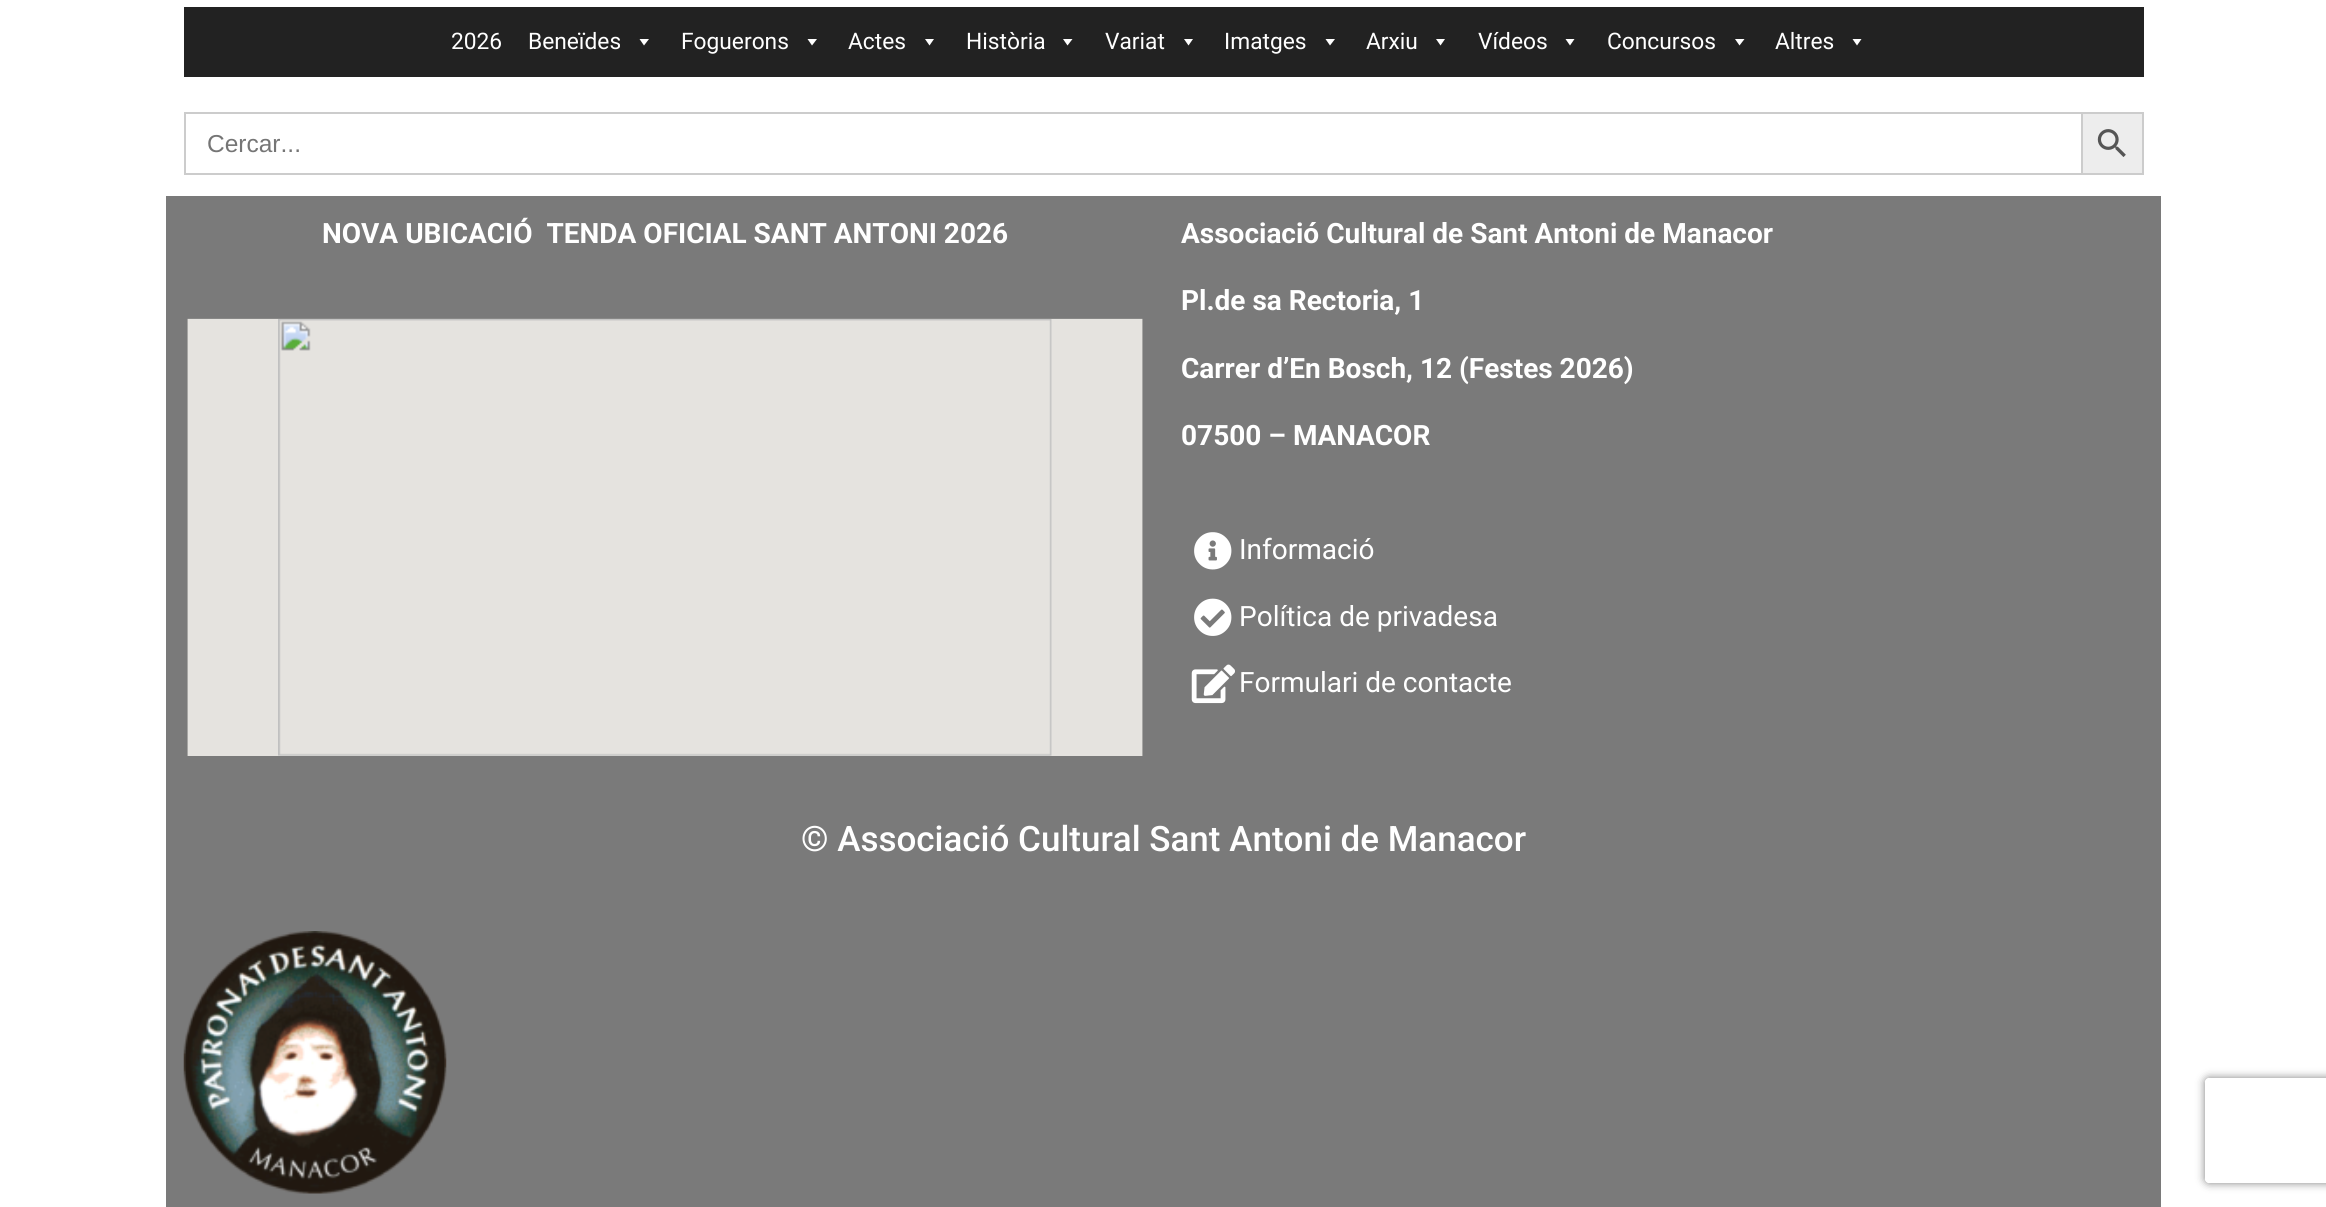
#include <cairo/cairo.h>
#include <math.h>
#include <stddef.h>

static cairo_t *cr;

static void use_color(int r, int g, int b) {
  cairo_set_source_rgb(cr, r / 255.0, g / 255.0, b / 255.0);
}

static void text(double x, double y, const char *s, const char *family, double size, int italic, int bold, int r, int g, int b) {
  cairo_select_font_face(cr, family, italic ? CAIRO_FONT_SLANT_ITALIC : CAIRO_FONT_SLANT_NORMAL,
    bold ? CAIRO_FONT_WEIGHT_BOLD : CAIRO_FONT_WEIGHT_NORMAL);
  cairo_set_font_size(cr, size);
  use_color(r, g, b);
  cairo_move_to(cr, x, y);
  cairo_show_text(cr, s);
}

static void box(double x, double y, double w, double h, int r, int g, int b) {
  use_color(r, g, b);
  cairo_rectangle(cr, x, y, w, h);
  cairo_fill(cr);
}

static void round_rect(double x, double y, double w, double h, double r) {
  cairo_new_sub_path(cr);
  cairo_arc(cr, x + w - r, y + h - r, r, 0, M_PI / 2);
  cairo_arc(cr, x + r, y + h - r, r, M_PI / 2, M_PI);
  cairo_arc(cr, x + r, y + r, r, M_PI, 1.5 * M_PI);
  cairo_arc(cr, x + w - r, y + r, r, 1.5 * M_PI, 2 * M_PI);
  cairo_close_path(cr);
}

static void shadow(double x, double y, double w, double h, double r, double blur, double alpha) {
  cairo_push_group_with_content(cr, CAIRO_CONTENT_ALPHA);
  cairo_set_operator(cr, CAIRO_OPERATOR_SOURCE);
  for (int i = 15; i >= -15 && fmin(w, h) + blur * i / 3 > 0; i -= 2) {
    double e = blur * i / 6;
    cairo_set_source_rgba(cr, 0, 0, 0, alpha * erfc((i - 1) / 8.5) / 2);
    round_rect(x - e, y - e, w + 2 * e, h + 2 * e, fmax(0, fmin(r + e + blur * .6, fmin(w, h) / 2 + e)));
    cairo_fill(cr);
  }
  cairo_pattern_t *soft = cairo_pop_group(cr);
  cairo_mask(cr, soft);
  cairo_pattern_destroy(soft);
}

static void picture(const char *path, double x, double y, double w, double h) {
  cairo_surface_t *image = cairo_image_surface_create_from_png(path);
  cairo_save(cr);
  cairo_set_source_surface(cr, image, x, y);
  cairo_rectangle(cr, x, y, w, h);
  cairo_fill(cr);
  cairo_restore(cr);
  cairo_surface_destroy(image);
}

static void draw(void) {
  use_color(255, 255, 255);
  cairo_paint(cr);
  box(184, 7, 1960, 70, 34, 34, 34);
  use_color(255, 255, 255);
  cairo_new_path(cr);
  cairo_move_to(cr, 649, 39);
  cairo_line_to(cr, 644, 45.5);
  cairo_line_to(cr, 639.5, 39);
  cairo_close_path(cr);
  cairo_fill(cr);
  cairo_new_path(cr);
  cairo_move_to(cr, 817, 39);
  cairo_line_to(cr, 812, 45.5);
  cairo_line_to(cr, 807.5, 39);
  cairo_close_path(cr);
  cairo_fill(cr);
  cairo_new_path(cr);
  cairo_move_to(cr, 934, 39);
  cairo_line_to(cr, 929.5, 45.5);
  cairo_line_to(cr, 925, 39);
  cairo_close_path(cr);
  cairo_fill(cr);
  cairo_new_path(cr);
  cairo_move_to(cr, 1072.5, 39);
  cairo_line_to(cr, 1067.5, 45.5);
  cairo_line_to(cr, 1063, 39);
  cairo_close_path(cr);
  cairo_fill(cr);
  cairo_new_path(cr);
  cairo_move_to(cr, 1193, 39);
  cairo_line_to(cr, 1188.5, 45.5);
  cairo_line_to(cr, 1184, 39);
  cairo_close_path(cr);
  cairo_fill(cr);
  cairo_new_path(cr);
  cairo_move_to(cr, 1335, 39);
  cairo_line_to(cr, 1330, 45.5);
  cairo_line_to(cr, 1325.5, 39);
  cairo_close_path(cr);
  cairo_fill(cr);
  cairo_new_path(cr);
  cairo_move_to(cr, 1445, 39);
  cairo_line_to(cr, 1440.5, 45.5);
  cairo_line_to(cr, 1436, 39);
  cairo_close_path(cr);
  cairo_fill(cr);
  cairo_new_path(cr);
  cairo_move_to(cr, 1574.5, 39);
  cairo_line_to(cr, 1570, 45.5);
  cairo_line_to(cr, 1565.5, 39);
  cairo_close_path(cr);
  cairo_fill(cr);
  cairo_new_path(cr);
  cairo_move_to(cr, 1744.5, 39);
  cairo_line_to(cr, 1739.5, 45.5);
  cairo_line_to(cr, 1735, 39);
  cairo_close_path(cr);
  cairo_fill(cr);
  cairo_new_path(cr);
  cairo_move_to(cr, 1861.5, 39);
  cairo_line_to(cr, 1857, 45.5);
  cairo_line_to(cr, 1852.5, 39);
  cairo_close_path(cr);
  cairo_fill(cr);
  box(184, 112, 1897, 2, 204, 204, 204);
  box(184, 173, 1897, 2, 204, 204, 204);
  box(184, 112, 2, 63, 204, 204, 204);
  use_color(237, 237, 237);
  cairo_rectangle(cr, 2082, 113, 61, 61);
  cairo_fill_preserve(cr);
  use_color(204, 204, 204);
  cairo_stroke(cr);
  picture("img_01.png", 2097, 129, 29, 28);
  box(166, 196, 1995, 1011, 122, 122, 122);
  picture("img_02.png", 187, 318, 956, 438);
  picture("img_03.png", 1194, 532, 38, 38);
  picture("img_04.png", 1194, 598, 38, 38);
  picture("img_05.png", 1191, 664, 44, 40);
  picture("img_06.png", 183, 931, 264, 263);
  cairo_save(cr);
  cairo_set_fill_rule(cr, CAIRO_FILL_RULE_EVEN_ODD);
  cairo_new_path(cr);
  cairo_move_to(cr, 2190, 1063);
  cairo_line_to(cr, 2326, 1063);
  cairo_line_to(cr, 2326, 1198);
  cairo_line_to(cr, 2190, 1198);
  cairo_close_path(cr);
  cairo_move_to(cr, 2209, 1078);
  cairo_line_to(cr, 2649, 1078);
  cairo_curve_to(cr, 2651, 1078, 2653, 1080, 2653, 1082);
  cairo_line_to(cr, 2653, 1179);
  cairo_curve_to(cr, 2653, 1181, 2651, 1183, 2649, 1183);
  cairo_line_to(cr, 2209, 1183);
  cairo_curve_to(cr, 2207, 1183, 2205, 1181, 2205, 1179);
  cairo_line_to(cr, 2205, 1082);
  cairo_curve_to(cr, 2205, 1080, 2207, 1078, 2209, 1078);
  cairo_close_path(cr);
  cairo_clip(cr);
  use_color(128, 128, 128);
  shadow(2205, 1078, 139, 105, 4, 4.5, 1);
  cairo_restore(cr);
  text(451, 49, "2026", "Roboto", 22.75, 0, 0, 255, 255, 255);
  text(528, 49, "Beneïdes", "Roboto", 22.75, 0, 0, 255, 255, 255);
  text(681, 49, "Foguerons", "Roboto", 22.75, 0, 0, 255, 255, 255);
  text(848, 49, "Actes", "Roboto", 22.75, 0, 0, 255, 255, 255);
  text(966, 49, "Història", "Roboto", 22.75, 0, 0, 255, 255, 255);
  text(1105, 49, "Variat", "Roboto", 22.75, 0, 0, 255, 255, 255);
  text(1224, 49, "Imatges", "Roboto", 22.75, 0, 0, 255, 255, 255);
  text(1366, 49, "Arxiu", "Roboto", 22.75, 0, 0, 255, 255, 255);
  text(1478, 49, "Vídeos", "Roboto", 22.75, 0, 0, 255, 255, 255);
  text(1607, 49, "Concursos", "Roboto", 22.75, 0, 0, 255, 255, 255);
  text(1775, 49, "Altres", "Roboto", 22.75, 0, 0, 255, 255, 255);
  text(207, 152, "Cercar...", "Liberation Sans", 24.5, 0, 0, 117, 117, 117);
  text(322, 243, "NOVA UBICACIÓ  TENDA OFICIAL SANT ANTONI 2026", "Roboto", 28, 0, 1, 255, 255, 255);
  text(1181, 243, "Associació Cultural de Sant Antoni de Manacor", "Roboto", 28, 0, 1, 255, 255, 255);
  text(1181, 310, "Pl.de sa Rectoria, 1", "Roboto", 28, 0, 1, 255, 255, 255);
  text(1181, 378, "Carrer d’En Bosch, 12 (Festes 2026)", "Roboto", 28, 0, 1, 255, 255, 255);
  text(1181, 445, "07500 – MANACOR", "Roboto", 28, 0, 1, 255, 255, 255);
  text(1239, 559, "Informació", "Roboto", 28, 0, 0, 255, 255, 255);
  text(1239, 626, "Política de privadesa", "Roboto", 28, 0, 0, 255, 255, 255);
  text(1239, 692, "Formulari de contacte", "Roboto", 28, 0, 0, 255, 255, 255);
  text(801, 851, "© Associació Cultural Sant Antoni de Manacor", "Roboto Medium", 35, 0, 0, 255, 255, 255);
}

int main(void) {
  cairo_surface_t *surface = cairo_image_surface_create(CAIRO_FORMAT_RGB24, 2326, 1207);
  cr = cairo_create(surface);
  cairo_font_options_t *options = cairo_font_options_create();
  cairo_font_options_set_hint_metrics(options, CAIRO_HINT_METRICS_OFF);
  cairo_font_options_set_hint_style(options, CAIRO_HINT_STYLE_NONE);
  cairo_set_font_options(cr, options);
  cairo_set_miter_limit(cr, 4);
  draw();
  cairo_surface_write_to_png(surface, "out.png");
  cairo_font_options_destroy(options);
  cairo_destroy(cr);
  cairo_surface_destroy(surface);
  return 0;
}
